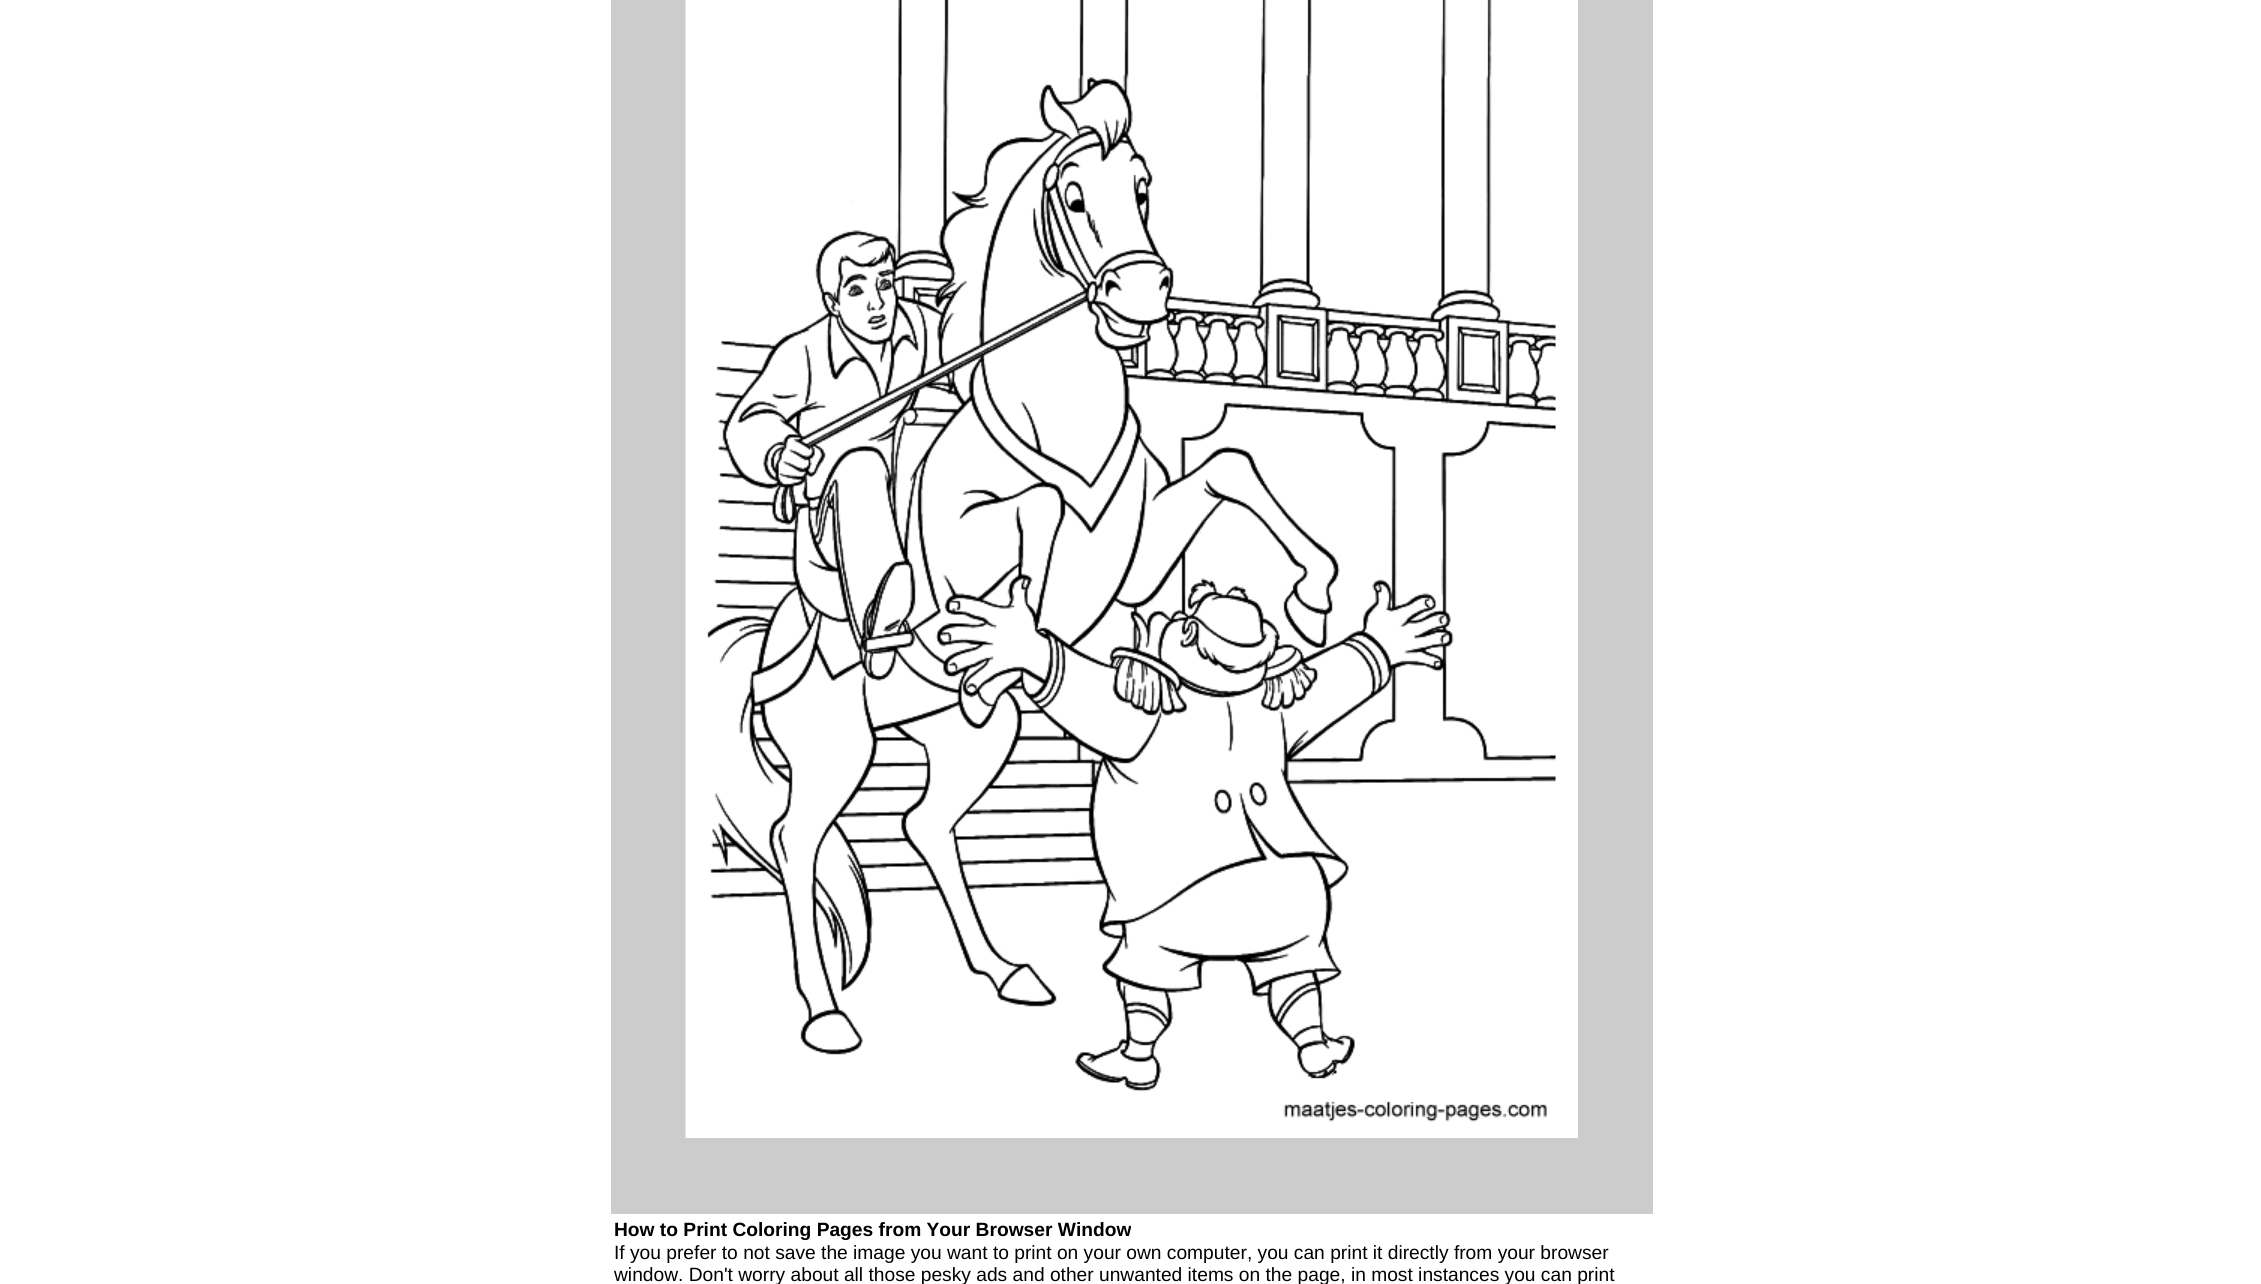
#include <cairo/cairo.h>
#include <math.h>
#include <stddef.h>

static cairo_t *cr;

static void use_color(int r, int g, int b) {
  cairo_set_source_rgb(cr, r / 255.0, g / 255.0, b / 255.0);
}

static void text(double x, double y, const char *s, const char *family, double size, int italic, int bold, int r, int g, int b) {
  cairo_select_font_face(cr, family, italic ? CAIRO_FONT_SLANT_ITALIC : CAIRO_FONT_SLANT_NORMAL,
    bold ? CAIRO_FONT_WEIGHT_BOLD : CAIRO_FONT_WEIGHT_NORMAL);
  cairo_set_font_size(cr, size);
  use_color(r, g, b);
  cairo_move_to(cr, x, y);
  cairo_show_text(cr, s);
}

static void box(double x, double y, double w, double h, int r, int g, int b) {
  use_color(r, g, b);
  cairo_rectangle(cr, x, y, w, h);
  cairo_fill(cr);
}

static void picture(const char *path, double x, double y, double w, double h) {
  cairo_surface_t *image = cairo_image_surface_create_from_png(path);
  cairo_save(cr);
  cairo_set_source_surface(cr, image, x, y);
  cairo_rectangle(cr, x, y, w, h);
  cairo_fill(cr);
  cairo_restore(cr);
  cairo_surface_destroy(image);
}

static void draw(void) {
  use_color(255, 255, 255);
  cairo_paint(cr);
  box(611, 0, 1042, 1214, 204, 204, 204);
  picture("img_01.png", 685, 0, 893, 1138);
  text(614, 1236, "How to Print Coloring Pages from Your Browser Window", "Liberation Sans", 19.2, 0, 1, 0, 0, 0);
  text(614, 1259, "If you prefer to not save the image you want to print on your own computer, you can print it directly from your browser", "Liberation Sans", 19.2, 0, 0, 0, 0, 0);
  text(614, 1281, "window. Don't worry about all those pesky ads and other unwanted items on the page, in most instances you can print", "Liberation Sans", 19.2, 0, 0, 0, 0, 0);
}

int main(void) {
  cairo_surface_t *surface = cairo_image_surface_create(CAIRO_FORMAT_RGB24, 2261, 1284);
  cr = cairo_create(surface);
  cairo_font_options_t *options = cairo_font_options_create();
  cairo_font_options_set_hint_metrics(options, CAIRO_HINT_METRICS_OFF);
  cairo_font_options_set_hint_style(options, CAIRO_HINT_STYLE_NONE);
  cairo_set_font_options(cr, options);
  cairo_set_miter_limit(cr, 4);
  draw();
  cairo_surface_write_to_png(surface, "out.png");
  cairo_font_options_destroy(options);
  cairo_destroy(cr);
  cairo_surface_destroy(surface);
  return 0;
}
